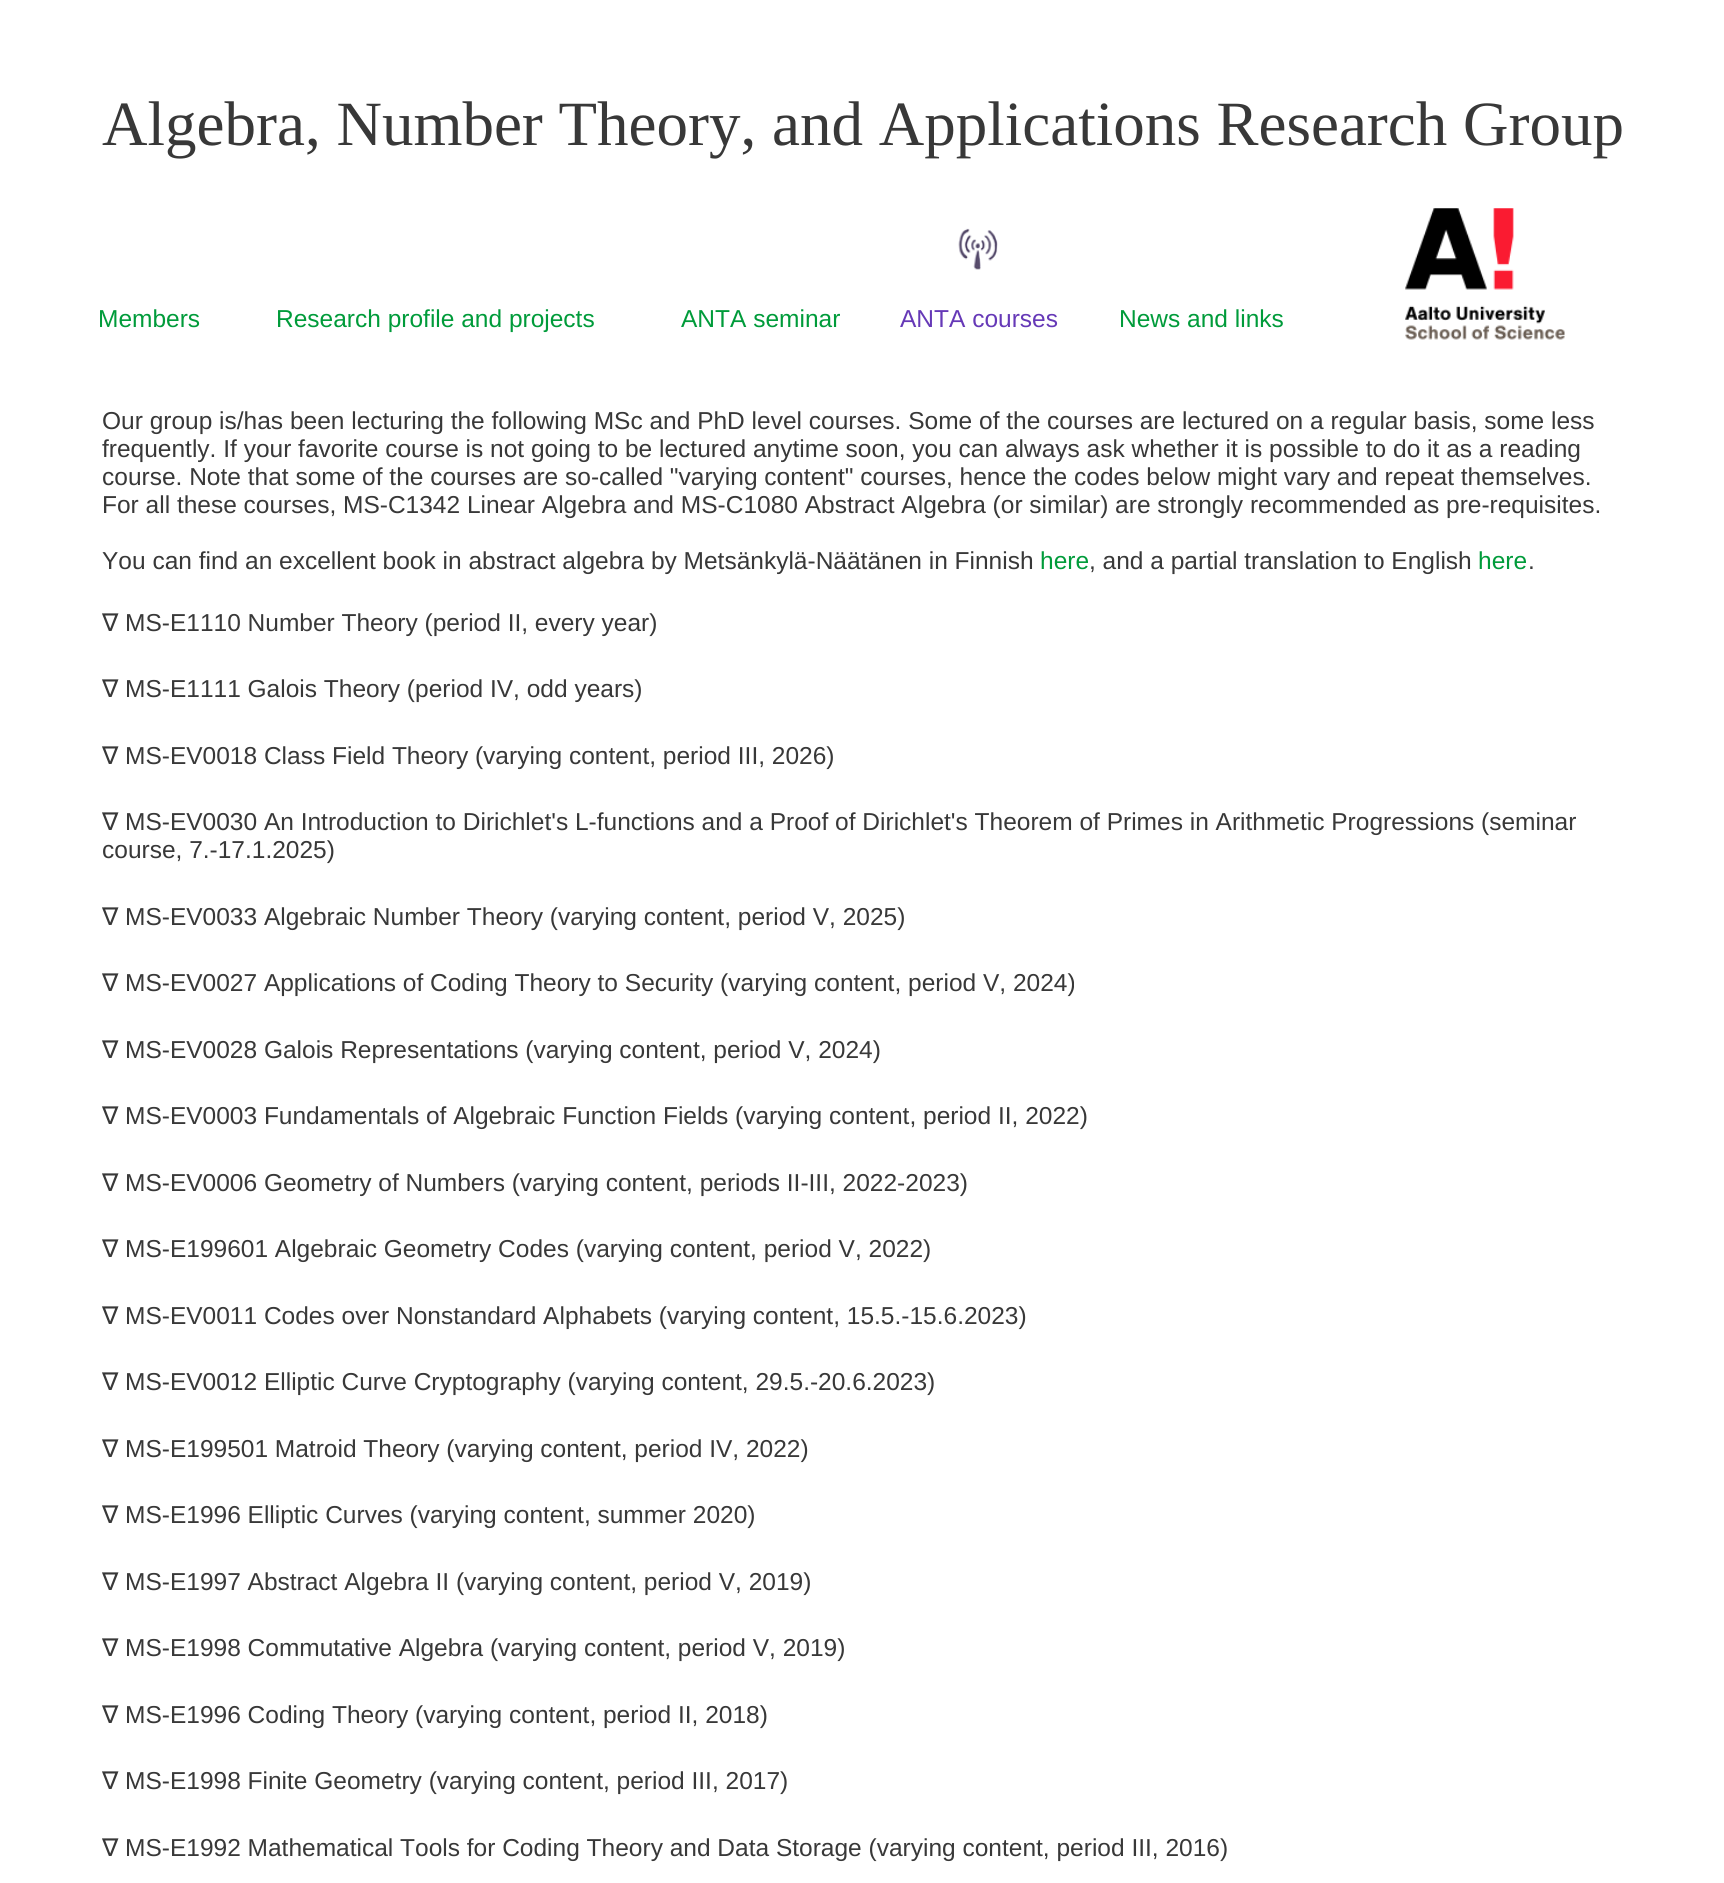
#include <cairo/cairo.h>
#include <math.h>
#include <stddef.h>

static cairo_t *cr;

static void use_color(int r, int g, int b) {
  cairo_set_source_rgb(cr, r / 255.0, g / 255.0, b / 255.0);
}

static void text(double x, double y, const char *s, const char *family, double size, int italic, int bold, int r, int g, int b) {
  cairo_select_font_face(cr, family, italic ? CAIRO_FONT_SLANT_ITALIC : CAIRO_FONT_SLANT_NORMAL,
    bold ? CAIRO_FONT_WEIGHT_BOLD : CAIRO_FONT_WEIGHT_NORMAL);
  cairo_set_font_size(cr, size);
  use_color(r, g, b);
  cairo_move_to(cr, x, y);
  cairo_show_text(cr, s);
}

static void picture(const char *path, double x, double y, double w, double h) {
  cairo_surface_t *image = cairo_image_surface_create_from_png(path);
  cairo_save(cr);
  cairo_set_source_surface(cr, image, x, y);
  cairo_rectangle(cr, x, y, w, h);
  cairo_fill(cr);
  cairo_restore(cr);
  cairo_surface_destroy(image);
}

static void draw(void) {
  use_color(255, 255, 255);
  cairo_paint(cr);
  picture("img_01.png", 958, 228, 40, 42);
  picture("img_02.png", 1405, 208, 160, 132);
  text(102, 145, "Algebra, Number Theory, and Applications Research Group", "Liberation Serif", 63, 0, 0, 56, 56, 56);
  text(98, 327, "Members", "Liberation Sans", 24.5, 0, 0, 0, 155, 58);
  text(276, 327, "Research profile and projects", "Liberation Sans", 24.5, 0, 0, 0, 155, 58);
  text(681, 327, "ANTA seminar", "Liberation Sans", 24.5, 0, 0, 0, 155, 58);
  text(900, 327, "ANTA courses", "Liberation Sans", 24.5, 0, 0, 102, 57, 183);
  text(1119, 327, "News and links", "Liberation Sans", 24.5, 0, 0, 0, 155, 58);
  text(102, 429, "Our group is/has been lecturing the following MSc and PhD level courses. Some of the courses are lectured on a regular basis, some less", "Liberation Sans", 24.5, 0, 0, 56, 56, 56);
  text(102, 457, "frequently. If your favorite course is not going to be lectured anytime soon, you can always ask whether it is possible to do it as a reading", "Liberation Sans", 24.5, 0, 0, 56, 56, 56);
  text(102, 485, "course. Note that some of the courses are so-called \"varying content\" courses, hence the codes below might vary and repeat themselves.", "Liberation Sans", 24.5, 0, 0, 56, 56, 56);
  text(102, 513, "For all these courses, MS-C1342 Linear Algebra and MS-C1080 Abstract Algebra (or similar) are strongly recommended as pre-requisites.", "Liberation Sans", 24.5, 0, 0, 56, 56, 56);
  text(102, 569, "You can find an excellent book in abstract algebra by Metsänkylä-Näätänen in Finnish", "Liberation Sans", 24.5, 0, 0, 56, 56, 56);
  text(1040, 569, "here", "Liberation Sans", 24.5, 0, 0, 0, 155, 58);
  text(1089, 569, ", and a partial translation to English", "Liberation Sans", 24.5, 0, 0, 56, 56, 56);
  text(1478, 569, "here", "Liberation Sans", 24.5, 0, 0, 0, 155, 58);
  text(1528, 569, ".", "Liberation Sans", 24.5, 0, 0, 56, 56, 56);
  text(102, 631, "∇", "DejaVu Sans", 24.5, 0, 0, 56, 56, 56);
  text(125, 631, "MS-E1110 Number Theory (period II, every year)", "Liberation Sans", 24.5, 0, 0, 56, 56, 56);
  text(102, 697, "∇", "DejaVu Sans", 24.5, 0, 0, 56, 56, 56);
  text(125, 697, "MS-E1111 Galois Theory (period IV, odd years)", "Liberation Sans", 24.5, 0, 0, 56, 56, 56);
  text(102, 764, "∇", "DejaVu Sans", 24.5, 0, 0, 56, 56, 56);
  text(125, 764, "MS-EV0018 Class Field Theory (varying content, period III, 2026)", "Liberation Sans", 24.5, 0, 0, 56, 56, 56);
  text(102, 830, "∇", "DejaVu Sans", 24.5, 0, 0, 56, 56, 56);
  text(125, 830, "MS-EV0030 An Introduction to Dirichlet's L-functions and a Proof of Dirichlet's Theorem of Primes in Arithmetic Progressions (seminar", "Liberation Sans", 24.5, 0, 0, 56, 56, 56);
  text(102, 858, "course, 7.-17.1.2025)", "Liberation Sans", 24.5, 0, 0, 56, 56, 56);
  text(102, 925, "∇", "DejaVu Sans", 24.5, 0, 0, 56, 56, 56);
  text(125, 925, "MS-EV0033 Algebraic Number Theory (varying content, period V, 2025)", "Liberation Sans", 24.5, 0, 0, 56, 56, 56);
  text(102, 991, "∇", "DejaVu Sans", 24.5, 0, 0, 56, 56, 56);
  text(125, 991, "MS-EV0027 Applications of Coding Theory to Security (varying content, period V, 2024)", "Liberation Sans", 24.5, 0, 0, 56, 56, 56);
  text(102, 1058, "∇", "DejaVu Sans", 24.5, 0, 0, 56, 56, 56);
  text(125, 1058, "MS-EV0028 Galois Representations (varying content, period V, 2024)", "Liberation Sans", 24.5, 0, 0, 56, 56, 56);
  text(102, 1124, "∇", "DejaVu Sans", 24.5, 0, 0, 56, 56, 56);
  text(125, 1124, "MS-EV0003 Fundamentals of Algebraic Function Fields (varying content, period II, 2022)", "Liberation Sans", 24.5, 0, 0, 56, 56, 56);
  text(102, 1191, "∇", "DejaVu Sans", 24.5, 0, 0, 56, 56, 56);
  text(125, 1191, "MS-EV0006 Geometry of Numbers (varying content, periods II-III, 2022-2023)", "Liberation Sans", 24.5, 0, 0, 56, 56, 56);
  text(102, 1257, "∇", "DejaVu Sans", 24.5, 0, 0, 56, 56, 56);
  text(125, 1257, "MS-E199601 Algebraic Geometry Codes (varying content, period V, 2022)", "Liberation Sans", 24.5, 0, 0, 56, 56, 56);
  text(102, 1324, "∇", "DejaVu Sans", 24.5, 0, 0, 56, 56, 56);
  text(125, 1324, "MS-EV0011 Codes over Nonstandard Alphabets (varying content, 15.5.-15.6.2023)", "Liberation Sans", 24.5, 0, 0, 56, 56, 56);
  text(102, 1390, "∇", "DejaVu Sans", 24.5, 0, 0, 56, 56, 56);
  text(125, 1390, "MS-EV0012 Elliptic Curve Cryptography (varying content, 29.5.-20.6.2023)", "Liberation Sans", 24.5, 0, 0, 56, 56, 56);
  text(102, 1457, "∇", "DejaVu Sans", 24.5, 0, 0, 56, 56, 56);
  text(125, 1457, "MS-E199501 Matroid Theory (varying content, period IV, 2022)", "Liberation Sans", 24.5, 0, 0, 56, 56, 56);
  text(102, 1523, "∇", "DejaVu Sans", 24.5, 0, 0, 56, 56, 56);
  text(125, 1523, "MS-E1996 Elliptic Curves (varying content, summer 2020)", "Liberation Sans", 24.5, 0, 0, 56, 56, 56);
  text(102, 1590, "∇", "DejaVu Sans", 24.5, 0, 0, 56, 56, 56);
  text(125, 1590, "MS-E1997 Abstract Algebra II (varying content, period V, 2019)", "Liberation Sans", 24.5, 0, 0, 56, 56, 56);
  text(102, 1656, "∇", "DejaVu Sans", 24.5, 0, 0, 56, 56, 56);
  text(125, 1656, "MS-E1998 Commutative Algebra (varying content, period V, 2019)", "Liberation Sans", 24.5, 0, 0, 56, 56, 56);
  text(102, 1723, "∇", "DejaVu Sans", 24.5, 0, 0, 56, 56, 56);
  text(125, 1723, "MS-E1996 Coding Theory (varying content, period II, 2018)", "Liberation Sans", 24.5, 0, 0, 56, 56, 56);
  text(102, 1789, "∇", "DejaVu Sans", 24.5, 0, 0, 56, 56, 56);
  text(125, 1789, "MS-E1998 Finite Geometry (varying content, period III, 2017)", "Liberation Sans", 24.5, 0, 0, 56, 56, 56);
  text(102, 1856, "∇", "DejaVu Sans", 24.5, 0, 0, 56, 56, 56);
  text(125, 1856, "MS-E1992 Mathematical Tools for Coding Theory and Data Storage (varying content, period III, 2016)", "Liberation Sans", 24.5, 0, 0, 56, 56, 56);
}

int main(void) {
  cairo_surface_t *surface = cairo_image_surface_create(CAIRO_FORMAT_RGB24, 1724, 1883);
  cr = cairo_create(surface);
  cairo_font_options_t *options = cairo_font_options_create();
  cairo_font_options_set_hint_metrics(options, CAIRO_HINT_METRICS_OFF);
  cairo_font_options_set_hint_style(options, CAIRO_HINT_STYLE_NONE);
  cairo_set_font_options(cr, options);
  cairo_set_miter_limit(cr, 4);
  draw();
  cairo_surface_write_to_png(surface, "out.png");
  cairo_font_options_destroy(options);
  cairo_destroy(cr);
  cairo_surface_destroy(surface);
  return 0;
}
